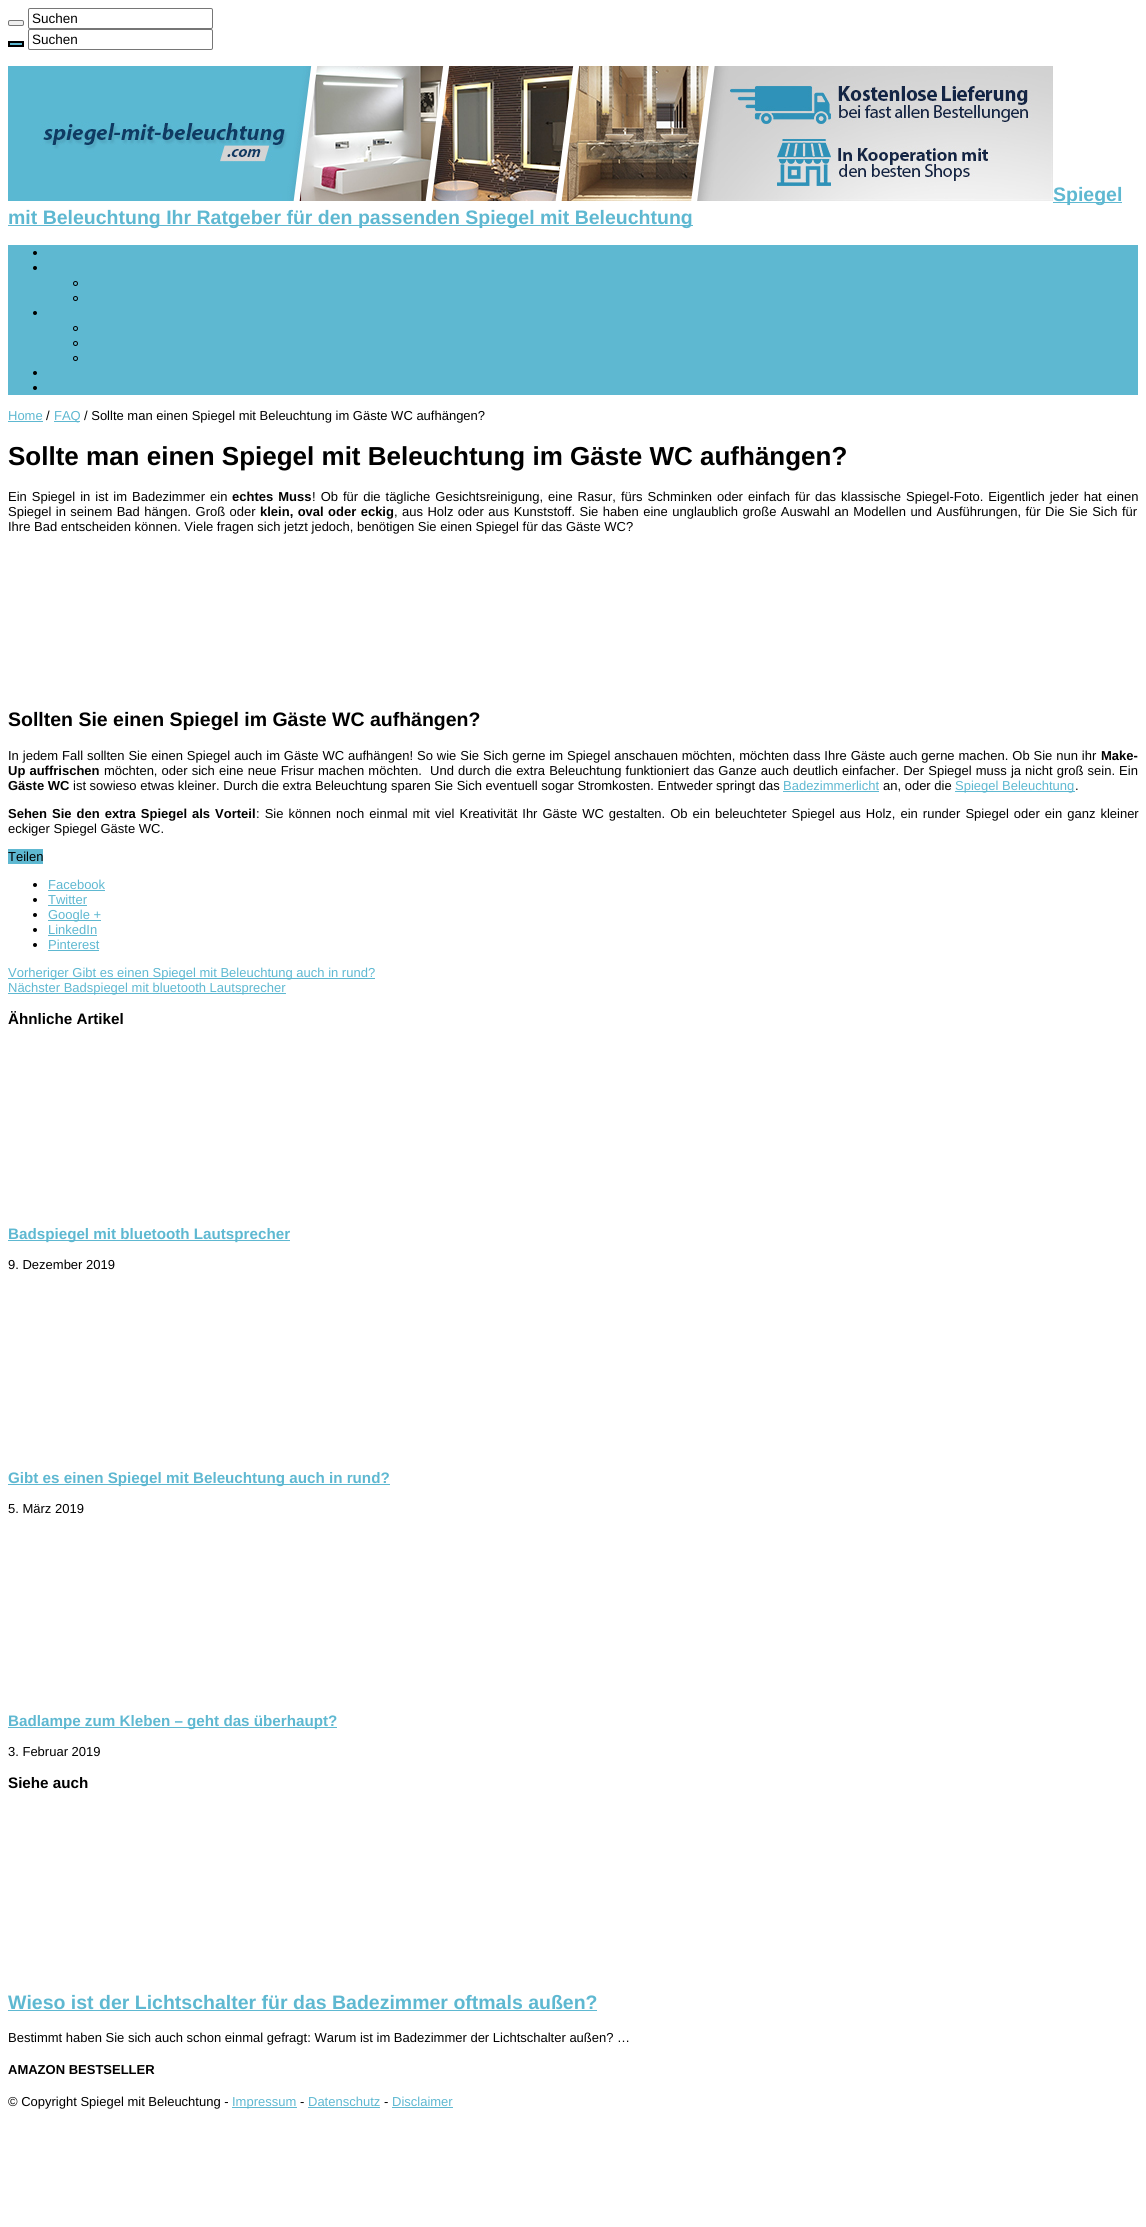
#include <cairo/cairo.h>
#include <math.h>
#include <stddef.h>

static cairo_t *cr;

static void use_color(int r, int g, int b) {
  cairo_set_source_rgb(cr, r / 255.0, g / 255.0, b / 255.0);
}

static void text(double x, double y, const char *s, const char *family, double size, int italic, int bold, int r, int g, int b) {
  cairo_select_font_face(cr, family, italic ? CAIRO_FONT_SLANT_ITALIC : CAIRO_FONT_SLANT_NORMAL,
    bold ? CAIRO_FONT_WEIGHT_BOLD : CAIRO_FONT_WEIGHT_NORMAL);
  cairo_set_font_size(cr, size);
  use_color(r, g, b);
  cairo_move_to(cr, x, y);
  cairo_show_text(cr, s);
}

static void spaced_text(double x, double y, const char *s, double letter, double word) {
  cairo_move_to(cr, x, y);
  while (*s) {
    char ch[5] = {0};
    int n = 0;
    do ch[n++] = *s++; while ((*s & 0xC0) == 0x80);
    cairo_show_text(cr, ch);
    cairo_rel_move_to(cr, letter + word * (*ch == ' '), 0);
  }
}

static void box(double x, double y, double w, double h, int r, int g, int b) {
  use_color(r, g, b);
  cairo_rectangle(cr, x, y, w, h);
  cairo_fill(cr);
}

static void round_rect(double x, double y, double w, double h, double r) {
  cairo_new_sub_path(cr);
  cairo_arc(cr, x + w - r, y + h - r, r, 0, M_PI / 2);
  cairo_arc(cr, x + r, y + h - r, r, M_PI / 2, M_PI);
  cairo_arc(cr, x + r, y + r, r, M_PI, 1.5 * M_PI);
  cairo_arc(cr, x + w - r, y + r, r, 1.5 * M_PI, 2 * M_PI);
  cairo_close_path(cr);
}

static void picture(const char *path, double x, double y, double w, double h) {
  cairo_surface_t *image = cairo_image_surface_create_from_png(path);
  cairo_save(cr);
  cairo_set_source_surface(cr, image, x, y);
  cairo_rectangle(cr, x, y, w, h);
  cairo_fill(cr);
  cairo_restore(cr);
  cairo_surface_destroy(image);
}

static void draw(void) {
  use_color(255, 255, 255);
  cairo_paint(cr);
  use_color(239, 239, 239);
  round_rect(8.5, 20.5, 15, 5, 1.5);
  cairo_fill_preserve(cr);
  use_color(118, 118, 118);
  cairo_set_line_width(cr, 1);
  cairo_stroke(cr);
  round_rect(28.5, 8.5, 184, 20, 1.5);
  cairo_stroke(cr);
  use_color(94, 184, 209);
  cairo_rectangle(cr, 9, 42, 14, 4);
  cairo_fill_preserve(cr);
  use_color(0, 0, 0);
  cairo_set_line_width(cr, 2);
  cairo_stroke(cr);
  round_rect(28.5, 29.5, 184, 20, 1.5);
  use_color(118, 118, 118);
  cairo_set_line_width(cr, 1);
  cairo_stroke(cr);
  picture("img_01.png", 8, 66, 1045, 135);
  box(1053, 202, 69, 1, 94, 184, 209);
  box(8, 225, 685, 1, 94, 184, 209);
  box(8, 245, 1130, 150, 94, 184, 209);
  use_color(0, 0, 0);
  cairo_arc(cr, 35, 253, 2, 0, 2 * M_PI);
  cairo_fill(cr);
  cairo_arc(cr, 35, 268, 2, 0, 2 * M_PI);
  cairo_fill(cr);
  cairo_arc(cr, 75.5, 283.5, 2, 0, 2 * M_PI);
  cairo_stroke(cr);
  cairo_arc(cr, 75.5, 298.5, 2, 0, 2 * M_PI);
  cairo_stroke(cr);
  cairo_arc(cr, 35, 313, 2, 0, 2 * M_PI);
  cairo_fill(cr);
  cairo_arc(cr, 75.5, 328.5, 2, 0, 2 * M_PI);
  cairo_stroke(cr);
  cairo_arc(cr, 75.5, 343.5, 2, 0, 2 * M_PI);
  cairo_stroke(cr);
  cairo_arc(cr, 75.5, 358.5, 2, 0, 2 * M_PI);
  cairo_stroke(cr);
  cairo_arc(cr, 35, 373, 2, 0, 2 * M_PI);
  cairo_fill(cr);
  cairo_arc(cr, 35, 388, 2, 0, 2 * M_PI);
  cairo_fill(cr);
  box(8, 421, 35, 1, 94, 184, 209);
  box(54, 421, 26, 1, 94, 184, 209);
  box(783, 791, 96, 1, 94, 184, 209);
  box(955, 791, 120, 1, 94, 184, 209);
  box(8, 849, 35, 15, 94, 184, 209);
  use_color(0, 0, 0);
  cairo_arc(cr, 35, 885, 2, 0, 2 * M_PI);
  cairo_fill(cr);
  box(48, 890, 57, 1, 94, 184, 209);
  use_color(0, 0, 0);
  cairo_arc(cr, 35, 900, 2, 0, 2 * M_PI);
  cairo_fill(cr);
  box(48, 905, 39, 1, 94, 184, 209);
  use_color(0, 0, 0);
  cairo_arc(cr, 35, 915, 2, 0, 2 * M_PI);
  cairo_fill(cr);
  box(48, 920, 53, 1, 94, 184, 209);
  use_color(0, 0, 0);
  cairo_arc(cr, 35, 930, 2, 0, 2 * M_PI);
  cairo_fill(cr);
  box(48, 935, 49, 1, 94, 184, 209);
  use_color(0, 0, 0);
  cairo_arc(cr, 35, 945, 2, 0, 2 * M_PI);
  cairo_fill(cr);
  box(48, 950, 51, 1, 94, 184, 209);
  box(8, 978, 367, 1, 94, 184, 209);
  box(8, 993, 278, 1, 94, 184, 209);
  box(8, 1240, 282, 1, 94, 184, 209);
  box(8, 1484, 382, 1, 94, 184, 209);
  box(8, 1727, 329, 1, 94, 184, 209);
  box(8, 2010, 589, 1, 94, 184, 209);
  box(232, 2107, 65, 1, 94, 184, 209);
  box(308, 2107, 72, 1, 94, 184, 209);
  box(392, 2107, 61, 1, 94, 184, 209);
  text(32, 23, "Suchen", "Liberation Sans", 13.5, 0, 0, 0, 0, 0);
  text(32, 44, "Suchen", "Liberation Sans", 13.5, 0, 0, 0, 0, 0);
  text(1053, 201, "Spiegel", "Liberation Sans", 19.5, 0, 1, 94, 184, 209);
  text(8, 224, "mit Beleuchtung Ihr Ratgeber für den passenden Spiegel mit Beleuchtung", "Liberation Sans", 19.5, 0, 1, 94, 184, 209);
  text(8, 420, "Home", "Liberation Sans", 13, 0, 0, 94, 184, 209);
  text(46, 420, "/", "Liberation Sans", 13, 0, 0, 0, 0, 0);
  text(54, 420, "FAQ", "Liberation Sans", 13, 0, 0, 94, 184, 209);
  text(84, 420, "/ Sollte man einen Spiegel mit Beleuchtung im Gäste WC aufhängen?", "Liberation Sans", 13, 0, 0, 0, 0, 0);
  text(8, 465, "Sollte man einen Spiegel mit Beleuchtung im Gäste WC aufhängen?", "Liberation Sans", 26, 0, 1, 0, 0, 0);
  cairo_select_font_face(cr, "Liberation Sans", CAIRO_FONT_SLANT_NORMAL, CAIRO_FONT_WEIGHT_NORMAL);
  cairo_set_font_size(cr, 13);
  spaced_text(8, 501, "Ein Spiegel in ist im Badezimmer ein", 0, 1.4);
  cairo_select_font_face(cr, "Liberation Sans", CAIRO_FONT_SLANT_NORMAL, CAIRO_FONT_WEIGHT_BOLD);
  spaced_text(232, 501, "echtes Muss", 0, 1.4);
  cairo_select_font_face(cr, "Liberation Sans", CAIRO_FONT_SLANT_NORMAL, CAIRO_FONT_WEIGHT_NORMAL);
  spaced_text(312, 501, "! Ob für die tägliche Gesichtsreinigung, eine Rasur, fürs Schminken oder einfach für das klassische Spiegel-Foto. Eigentlich jeder hat einen", 0, 1.4);
  spaced_text(8, 516, "Spiegel in seinem Bad hängen. Groß oder", 0, 0.8);
  cairo_select_font_face(cr, "Liberation Sans", CAIRO_FONT_SLANT_NORMAL, CAIRO_FONT_WEIGHT_BOLD);
  spaced_text(260, 516, "klein, oval oder eckig", 0, 0.8);
  cairo_select_font_face(cr, "Liberation Sans", CAIRO_FONT_SLANT_NORMAL, CAIRO_FONT_WEIGHT_NORMAL);
  spaced_text(394, 516, ", aus Holz oder aus Kunststoff. Sie haben eine unglaublich große Auswahl an Modellen und Ausführungen, für Die Sie Sich für", 0, 0.8);
  text(8, 531, "Ihre Bad entscheiden können. Viele fragen sich jetzt jedoch, benötigen Sie einen Spiegel für das Gäste WC?", "Liberation Sans", 13, 0, 0, 0, 0, 0);
  text(8, 726, "Sollten Sie einen Spiegel im Gäste WC aufhängen?", "Liberation Sans", 19.5, 0, 1, 0, 0, 0);
  cairo_select_font_face(cr, "Liberation Sans", CAIRO_FONT_SLANT_NORMAL, CAIRO_FONT_WEIGHT_NORMAL);
  cairo_set_font_size(cr, 13);
  spaced_text(8, 760, "In jedem Fall sollten Sie einen Spiegel auch im Gäste WC aufhängen! So wie Sie Sich gerne im Spiegel anschauen möchten, möchten dass Ihre Gäste auch gerne machen. Ob Sie nun ihr", 0, 0.3);
  text(1101, 760, "Make-", "Liberation Sans", 13, 0, 1, 0, 0, 0);
  spaced_text(8, 775, "Up auffrischen", 0, 0.5);
  cairo_select_font_face(cr, "Liberation Sans", CAIRO_FONT_SLANT_NORMAL, CAIRO_FONT_WEIGHT_NORMAL);
  spaced_text(104, 775, "möchten, oder sich eine neue Frisur machen möchten.  Und durch die extra Beleuchtung funktioniert das Ganze auch deutlich einfacher. Der Spiegel muss ja nicht groß sein. Ein", 0, 0.5);
  text(8, 790, "Gäste WC", "Liberation Sans", 13, 0, 1, 0, 0, 0);
  text(73, 790, "ist sowieso etwas kleiner. Durch die extra Beleuchtung sparen Sie Sich eventuell sogar Stromkosten. Entweder springt das", "Liberation Sans", 13, 0, 0, 0, 0, 0);
  text(783, 790, "Badezimmerlicht", "Liberation Sans", 13, 0, 0, 94, 184, 209);
  text(883, 790, "an, oder die", "Liberation Sans", 13, 0, 0, 0, 0, 0);
  text(955, 790, "Spiegel Beleuchtung", "Liberation Sans", 13, 0, 0, 94, 184, 209);
  text(1075, 790, ".", "Liberation Sans", 13, 0, 0, 0, 0, 0);
  cairo_select_font_face(cr, "Liberation Sans", CAIRO_FONT_SLANT_NORMAL, CAIRO_FONT_WEIGHT_BOLD);
  spaced_text(8, 818, "Sehen Sie den extra Spiegel als Vorteil", 0, 1.4);
  cairo_select_font_face(cr, "Liberation Sans", CAIRO_FONT_SLANT_NORMAL, CAIRO_FONT_WEIGHT_NORMAL);
  spaced_text(256, 818, ": Sie können noch einmal mit viel Kreativität Ihr Gäste WC gestalten. Ob ein beleuchteter Spiegel aus Holz, ein runder Spiegel oder ein ganz kleiner", 0, 1.4);
  text(8, 833, "eckiger Spiegel Gäste WC.", "Liberation Sans", 13, 0, 0, 0, 0, 0);
  text(8, 861, "Teilen", "Liberation Sans", 13, 0, 0, 0, 0, 0);
  text(48, 889, "Facebook", "Liberation Sans", 13, 0, 0, 94, 184, 209);
  text(48, 904, "Twitter", "Liberation Sans", 13, 0, 0, 94, 184, 209);
  text(48, 919, "Google +", "Liberation Sans", 13, 0, 0, 94, 184, 209);
  text(48, 934, "LinkedIn", "Liberation Sans", 13, 0, 0, 94, 184, 209);
  text(48, 949, "Pinterest", "Liberation Sans", 13, 0, 0, 94, 184, 209);
  text(8, 977, "Vorheriger Gibt es einen Spiegel mit Beleuchtung auch in rund?", "Liberation Sans", 13, 0, 0, 94, 184, 209);
  text(8, 992, "Nächster Badspiegel mit bluetooth Lautsprecher", "Liberation Sans", 13, 0, 0, 94, 184, 209);
  text(8, 1024, "Ähnliche Artikel", "Liberation Sans", 15.2, 0, 1, 0, 0, 0);
  text(8, 1239, "Badspiegel mit bluetooth Lautsprecher", "Liberation Sans", 15.2, 0, 1, 94, 184, 209);
  text(8, 1269, "9. Dezember 2019", "Liberation Sans", 13, 0, 0, 0, 0, 0);
  text(8, 1483, "Gibt es einen Spiegel mit Beleuchtung auch in rund?", "Liberation Sans", 15.2, 0, 1, 94, 184, 209);
  text(8, 1513, "5. März 2019", "Liberation Sans", 13, 0, 0, 0, 0, 0);
  text(8, 1726, "Badlampe zum Kleben – geht das überhaupt?", "Liberation Sans", 15.2, 0, 1, 94, 184, 209);
  text(8, 1756, "3. Februar 2019", "Liberation Sans", 13, 0, 0, 0, 0, 0);
  text(8, 1788, "Siehe auch", "Liberation Sans", 15.2, 0, 1, 0, 0, 0);
  text(8, 2009, "Wieso ist der Lichtschalter für das Badezimmer oftmals außen?", "Liberation Sans", 19.5, 0, 1, 94, 184, 209);
  text(8, 2042, "Bestimmt haben Sie sich auch schon einmal gefragt: Warum ist im Badezimmer der Lichtschalter außen? …", "Liberation Sans", 13, 0, 0, 0, 0, 0);
  text(8, 2074, "AMAZON BESTSELLER", "Liberation Sans", 13, 0, 1, 0, 0, 0);
  text(8, 2106, "© Copyright Spiegel mit Beleuchtung -", "Liberation Sans", 13, 0, 0, 0, 0, 0);
  text(232, 2106, "Impressum", "Liberation Sans", 13, 0, 0, 94, 184, 209);
  text(300, 2106, "-", "Liberation Sans", 13, 0, 0, 0, 0, 0);
  text(308, 2106, "Datenschutz", "Liberation Sans", 13, 0, 0, 94, 184, 209);
  text(384, 2106, "-", "Liberation Sans", 13, 0, 0, 0, 0, 0);
  text(392, 2106, "Disclaimer", "Liberation Sans", 13, 0, 0, 94, 184, 209);
}

int main(void) {
  cairo_surface_t *surface = cairo_image_surface_create(CAIRO_FORMAT_RGB24, 1146, 2227);
  cr = cairo_create(surface);
  cairo_font_options_t *options = cairo_font_options_create();
  cairo_font_options_set_hint_metrics(options, CAIRO_HINT_METRICS_OFF);
  cairo_font_options_set_hint_style(options, CAIRO_HINT_STYLE_NONE);
  cairo_set_font_options(cr, options);
  cairo_set_miter_limit(cr, 4);
  draw();
  cairo_surface_write_to_png(surface, "out.png");
  cairo_font_options_destroy(options);
  cairo_destroy(cr);
  cairo_surface_destroy(surface);
  return 0;
}
